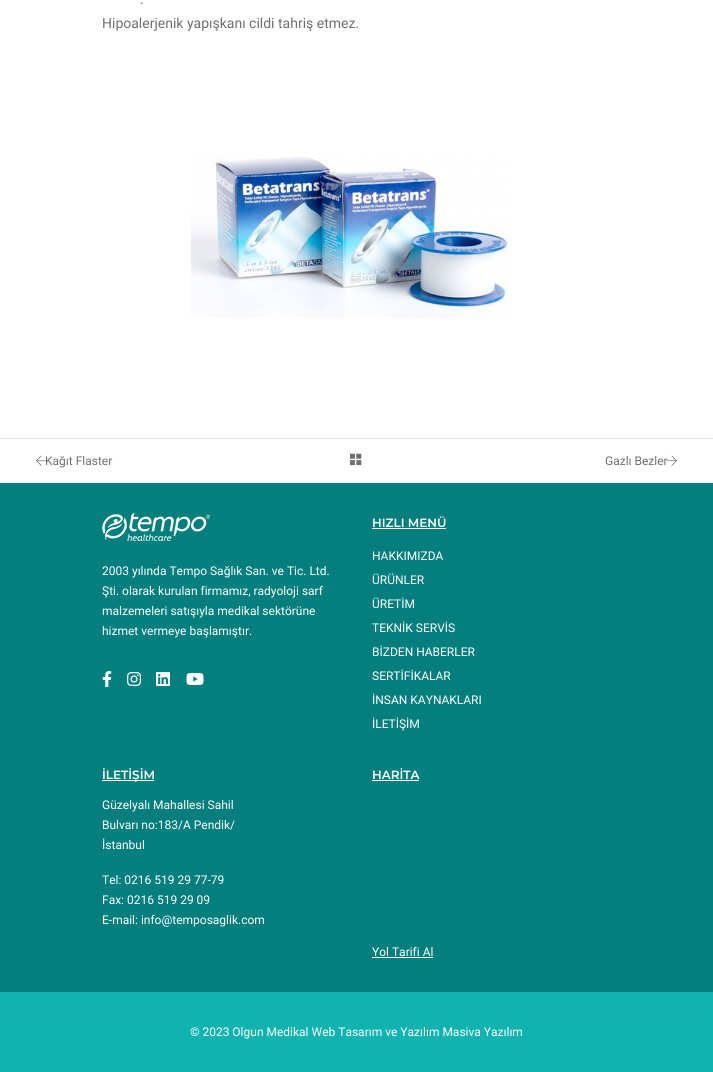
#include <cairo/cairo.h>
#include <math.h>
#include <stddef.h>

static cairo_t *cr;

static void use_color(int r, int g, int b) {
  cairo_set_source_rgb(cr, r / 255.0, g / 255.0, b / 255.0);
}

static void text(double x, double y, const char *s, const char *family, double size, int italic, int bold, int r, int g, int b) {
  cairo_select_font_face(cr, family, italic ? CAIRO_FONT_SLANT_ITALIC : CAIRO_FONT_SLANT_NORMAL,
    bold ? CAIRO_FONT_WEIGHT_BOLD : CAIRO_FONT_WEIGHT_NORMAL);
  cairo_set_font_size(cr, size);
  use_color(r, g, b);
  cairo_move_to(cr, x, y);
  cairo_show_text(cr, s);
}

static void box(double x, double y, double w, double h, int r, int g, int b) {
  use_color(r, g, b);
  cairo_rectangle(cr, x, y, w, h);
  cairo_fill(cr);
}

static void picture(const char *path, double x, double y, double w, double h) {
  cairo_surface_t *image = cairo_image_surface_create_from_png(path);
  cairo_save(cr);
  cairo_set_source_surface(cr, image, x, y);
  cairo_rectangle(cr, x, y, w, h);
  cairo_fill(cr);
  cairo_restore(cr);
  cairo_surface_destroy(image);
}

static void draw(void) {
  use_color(255, 255, 255);
  cairo_paint(cr);
  picture("img_01.png", 191, 156, 318, 162);
  box(0, 438, 713, 1, 228, 228, 228);
  picture("img_03.png", 350, 453, 12, 13);
  box(0, 483, 713, 509, 4, 127, 125);
  picture("img_05.png", 102, 513, 108, 28);
  picture("img_06.png", 102, 671, 10, 16);
  picture("img_07.png", 127, 672, 15, 14);
  picture("img_08.png", 156, 672, 14, 14);
  picture("img_09.png", 186, 673, 18, 12);
  box(372, 528, 74, 1, 255, 255, 255);
  box(102, 780, 52, 1, 255, 255, 255);
  box(372, 780, 47, 1, 255, 255, 255);
  box(372, 957, 61, 1, 255, 255, 255);
  box(0, 992, 713, 80, 16, 179, 176);
  text(140, 4, ".", "Roboto", 14, 0, 0, 111, 111, 111);
  text(102, 28, "Hipoalerjenik yapışkanı cildi tahriş etmez.", "Roboto", 14, 0, 0, 111, 111, 111);
  text(45, 465, "Kağıt Flaster", "Roboto", 12, 0, 0, 111, 111, 111);
  picture("img_02.png", 36, 455, 10, 11);
  text(605, 465, "Gazlı Bezler", "Roboto", 12, 0, 0, 111, 111, 111);
  picture("img_04.png", 666, 455, 11, 11);
  text(102, 575, "2003 yılında Tempo Sağlık San. ve Tic. Ltd.", "Roboto", 12, 0, 0, 255, 255, 255);
  text(102, 595, "Şti. olarak kurulan firmamız, radyoloji sarf", "Roboto", 12, 0, 0, 255, 255, 255);
  text(102, 615, "malzemeleri satışıyla medikal sektörüne", "Roboto", 12, 0, 0, 255, 255, 255);
  text(102, 635, "hizmet vermeye başlamıştır.", "Roboto", 12, 0, 0, 255, 255, 255);
  text(372, 527, "HIZLI MENÜ", "Montserrat SemiBold", 12, 0, 0, 255, 255, 255);
  text(372, 560, "HAKKIMIZDA", "Roboto", 12, 0, 0, 255, 255, 255);
  text(372, 584, "ÜRÜNLER", "Roboto", 12, 0, 0, 255, 255, 255);
  text(372, 608, "ÜRETİM", "Roboto", 12, 0, 0, 255, 255, 255);
  text(372, 632, "TEKNİK SERVİS", "Roboto", 12, 0, 0, 255, 255, 255);
  text(372, 656, "BİZDEN HABERLER", "Roboto", 12, 0, 0, 255, 255, 255);
  text(372, 680, "SERTİFİKALAR", "Roboto", 12, 0, 0, 255, 255, 255);
  text(372, 704, "İNSAN KAYNAKLARI", "Roboto", 12, 0, 0, 255, 255, 255);
  text(372, 728, "İLETİŞİM", "Roboto", 12, 0, 0, 255, 255, 255);
  text(102, 779, "İLETİŞİM", "Montserrat SemiBold", 12, 0, 0, 255, 255, 255);
  text(102, 809, "Güzelyalı Mahallesi Sahil", "Roboto", 12, 0, 0, 255, 255, 255);
  text(102, 829, "Bulvarı no:183/A Pendik/", "Roboto", 12, 0, 0, 255, 255, 255);
  text(102, 849, "İstanbul", "Roboto", 12, 0, 0, 255, 255, 255);
  text(102, 884, "Tel: 0216 519 29 77-79", "Roboto", 12, 0, 0, 255, 255, 255);
  text(102, 904, "Fax: 0216 519 29 09", "Roboto", 12, 0, 0, 255, 255, 255);
  text(102, 924, "E-mail: info@temposaglik.com", "Roboto", 12, 0, 0, 255, 255, 255);
  text(372, 779, "HARİTA", "Montserrat SemiBold", 12, 0, 0, 255, 255, 255);
  text(372, 956, "Yol Tarifi Al", "Roboto", 12, 0, 0, 255, 255, 255);
  text(190, 1036, "© 2023 Olgun Medikal Web Tasarım ve Yazılım Masiva Yazılım", "Roboto", 12, 0, 0, 255, 255, 255);
}

int main(void) {
  cairo_surface_t *surface = cairo_image_surface_create(CAIRO_FORMAT_RGB24, 713, 1072);
  cr = cairo_create(surface);
  cairo_font_options_t *options = cairo_font_options_create();
  cairo_font_options_set_hint_metrics(options, CAIRO_HINT_METRICS_OFF);
  cairo_font_options_set_hint_style(options, CAIRO_HINT_STYLE_NONE);
  cairo_set_font_options(cr, options);
  cairo_set_miter_limit(cr, 4);
  draw();
  cairo_surface_write_to_png(surface, "out.png");
  cairo_font_options_destroy(options);
  cairo_destroy(cr);
  cairo_surface_destroy(surface);
  return 0;
}
